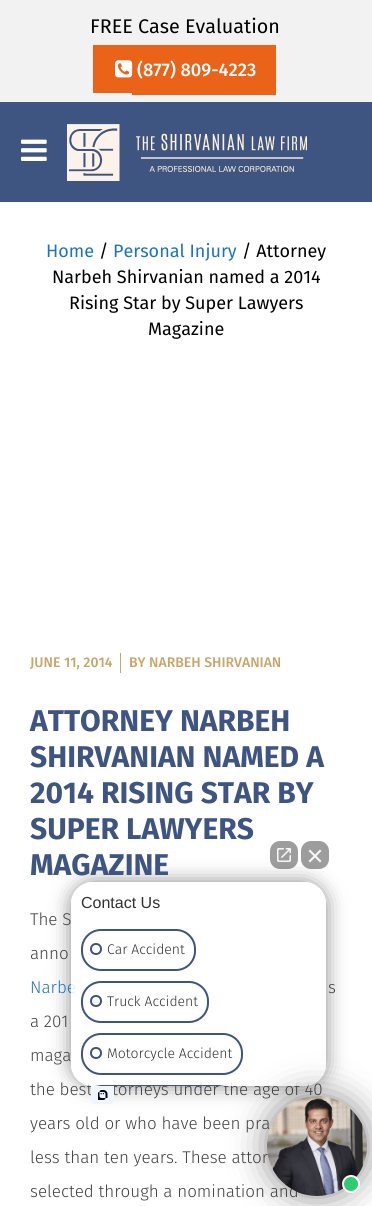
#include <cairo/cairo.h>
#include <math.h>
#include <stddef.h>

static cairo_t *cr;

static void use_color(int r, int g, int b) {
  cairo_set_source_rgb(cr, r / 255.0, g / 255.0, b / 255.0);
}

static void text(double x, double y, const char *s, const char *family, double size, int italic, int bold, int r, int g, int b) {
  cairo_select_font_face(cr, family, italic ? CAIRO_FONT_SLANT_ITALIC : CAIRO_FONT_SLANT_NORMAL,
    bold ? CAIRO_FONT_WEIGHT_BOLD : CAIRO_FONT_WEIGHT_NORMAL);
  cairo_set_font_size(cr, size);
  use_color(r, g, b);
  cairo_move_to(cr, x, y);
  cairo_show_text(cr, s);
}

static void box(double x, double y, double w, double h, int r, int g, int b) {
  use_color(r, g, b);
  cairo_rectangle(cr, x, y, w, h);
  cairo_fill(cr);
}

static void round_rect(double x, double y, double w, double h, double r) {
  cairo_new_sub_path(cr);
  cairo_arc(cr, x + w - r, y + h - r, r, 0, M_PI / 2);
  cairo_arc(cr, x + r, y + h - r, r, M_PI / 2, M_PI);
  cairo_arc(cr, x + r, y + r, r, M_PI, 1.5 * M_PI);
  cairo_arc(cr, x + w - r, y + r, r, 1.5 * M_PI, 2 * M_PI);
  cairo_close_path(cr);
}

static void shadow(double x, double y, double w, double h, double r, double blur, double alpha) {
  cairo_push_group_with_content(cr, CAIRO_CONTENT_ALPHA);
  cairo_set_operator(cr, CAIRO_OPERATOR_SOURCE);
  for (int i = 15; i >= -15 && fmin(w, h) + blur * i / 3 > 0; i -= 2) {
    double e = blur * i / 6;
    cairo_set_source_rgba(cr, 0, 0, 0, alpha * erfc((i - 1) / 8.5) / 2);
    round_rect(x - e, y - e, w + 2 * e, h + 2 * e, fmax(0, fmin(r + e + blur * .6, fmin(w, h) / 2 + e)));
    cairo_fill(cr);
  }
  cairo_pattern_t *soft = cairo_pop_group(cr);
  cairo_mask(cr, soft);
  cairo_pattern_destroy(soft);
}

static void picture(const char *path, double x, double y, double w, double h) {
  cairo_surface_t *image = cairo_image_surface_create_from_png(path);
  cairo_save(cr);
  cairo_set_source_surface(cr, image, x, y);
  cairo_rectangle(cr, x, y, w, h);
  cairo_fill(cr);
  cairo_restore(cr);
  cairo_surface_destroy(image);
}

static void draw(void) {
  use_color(255, 255, 255);
  cairo_paint(cr);
  box(0, 0, 372, 102, 242, 242, 242);
  box(93, 45, 39, 48, 234, 99, 25);
  box(132, 45, 144, 50, 234, 99, 25);
  picture("img_01.png", 115, 60, 18, 18);
  box(0, 102, 372, 100, 62, 84, 129);
  picture("img_02.png", 21, 139, 26, 22);
  picture("img_03.png", 67, 124, 240, 57);
  box(120, 653, 1, 20, 199, 165, 105);
  cairo_save(cr);
  cairo_set_fill_rule(cr, CAIRO_FILL_RULE_EVEN_ODD);
  cairo_new_path(cr);
  cairo_move_to(cr, 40, 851);
  cairo_line_to(cr, 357, 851);
  cairo_line_to(cr, 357, 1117);
  cairo_line_to(cr, 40, 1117);
  cairo_close_path(cr);
  cairo_move_to(cr, 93, 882);
  cairo_line_to(cr, 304, 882);
  cairo_curve_to(cr, 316, 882, 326, 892, 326, 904);
  cairo_line_to(cr, 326, 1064);
  cairo_curve_to(cr, 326, 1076, 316, 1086, 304, 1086);
  cairo_line_to(cr, 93, 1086);
  cairo_curve_to(cr, 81, 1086, 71, 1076, 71, 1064);
  cairo_line_to(cr, 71, 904);
  cairo_curve_to(cr, 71, 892, 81, 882, 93, 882);
  cairo_close_path(cr);
  cairo_clip(cr);
  use_color(60, 60, 60);
  shadow(71, 882, 255, 204, 22, 10, 0.6);
  cairo_restore(cr);
  cairo_set_source_rgba(cr, 0.153, 0.153, 0.153, 0.45);
  round_rect(270, 841, 28, 28, 10);
  cairo_fill(cr);
  picture("img_04.png", 277, 848, 14, 14);
  round_rect(301, 841, 28, 28, 10);
  cairo_fill(cr);
  use_color(245, 245, 245);
  cairo_new_path(cr);
  cairo_move_to(cr, 308.5, 851);
  cairo_line_to(cr, 310, 849.5);
  cairo_line_to(cr, 321.5, 861);
  cairo_line_to(cr, 320, 862.5);
  cairo_close_path(cr);
  cairo_fill(cr);
  cairo_new_path(cr);
  cairo_move_to(cr, 320, 849.5);
  cairo_line_to(cr, 321.5, 851);
  cairo_line_to(cr, 310, 862.5);
  cairo_line_to(cr, 308.5, 861);
  cairo_close_path(cr);
  cairo_fill(cr);
  text(90, 33, "FREE Case Evaluation", "Fira Sans", 19.75, 0, 0, 0, 0, 0);
  text(137, 76, "(877) 809-4223", "Fira Sans Medium", 18.25, 0, 0, 255, 255, 255);
  text(46, 257, "Home", "Fira Sans", 18, 0, 0, 30, 115, 190);
  text(99, 257, "/", "Fira Sans", 18, 0, 0, 0, 0, 0);
  text(113, 257, "Personal Injury", "Fira Sans", 18, 0, 0, 30, 115, 190);
  text(242, 257, "/ Attorney", "Fira Sans", 18, 0, 0, 0, 0, 0);
  text(52, 283, "Narbeh Shirvanian named a 2014", "Fira Sans", 18, 0, 0, 0, 0, 0);
  text(69, 309, "Rising Star by Super Lawyers", "Fira Sans", 18, 0, 0, 0, 0, 0);
  text(148, 335, "Magazine", "Fira Sans", 18, 0, 0, 0, 0, 0);
  text(30, 667, "JUNE 11, 2014", "Fira Sans Medium", 14, 0, 0, 199, 165, 105);
  text(129, 667, "BY NARBEH SHIRVANIAN", "Fira Sans Medium", 14, 0, 0, 199, 165, 105);
  text(30, 731, "ATTORNEY NARBEH", "Fira Sans", 30, 0, 1, 62, 84, 129);
  text(30, 767, "SHIRVANIAN NAMED A", "Fira Sans", 30, 0, 1, 62, 84, 129);
  text(30, 803, "2014 RISING STAR BY", "Fira Sans", 30, 0, 1, 62, 84, 129);
  text(30, 839, "SUPER LAWYERS", "Fira Sans", 30, 0, 1, 62, 84, 129);
  text(30, 875, "MAGAZINE", "Fira Sans", 30, 0, 1, 62, 84, 129);
  text(30, 925, "The S", "Fira Sans Light", 17, 0, 0, 65, 65, 65);
  text(30, 959, "anno", "Fira Sans Light", 17, 0, 0, 65, 65, 65);
  text(30, 993, "Narbe", "Fira Sans Light", 17, 0, 0, 30, 115, 190);
  text(328, 993, "s", "Fira Sans Light", 17, 0, 0, 65, 65, 65);
  text(30, 1027, "a 201", "Fira Sans Light", 17, 0, 0, 65, 65, 65);
  text(30, 1061, "maga", "Fira Sans Light", 17, 0, 0, 65, 65, 65);
  text(30, 1095, "the best", "Fira Sans Light", 17, 0, 0, 65, 65, 65);
  text(112, 1095, "torneys under the age of 40", "Fira Sans Light", 17, 0, 0, 65, 65, 65);
  text(30, 1129, "years old or who have been pra", "Fira Sans Light", 17, 0, 0, 65, 65, 65);
  text(30, 1163, "less than ten years. These attor", "Fira Sans Light", 17, 0, 0, 65, 65, 65);
  text(30, 1197, "selected through a nomination and", "Fira Sans Light", 17, 0, 0, 65, 65, 65);
  cairo_set_source_rgba(cr, 1, 1, 1, 0.85);
  round_rect(71, 882, 255, 204, 22);
  cairo_fill(cr);
  text(81, 908, "Contact Us", "Liberation Sans", 16, 0, 0, 49, 49, 49);
  round_rect(82, 930, 113, 40, 19);
  use_color(62, 84, 129);
  cairo_stroke(cr);
  cairo_arc(cr, 96, 949, 5, 0, 2 * M_PI);
  cairo_stroke(cr);
  text(107, 954, "Car Accident", "Fira Sans Light", 14, 0, 0, 49, 49, 49);
  round_rect(82, 982, 126, 40, 19);
  use_color(62, 84, 129);
  cairo_stroke(cr);
  cairo_arc(cr, 96, 1001, 5, 0, 2 * M_PI);
  cairo_stroke(cr);
  text(107, 1006, "Truck Accident", "Fira Sans Light", 14, 0, 0, 49, 49, 49);
  round_rect(82, 1034, 160, 40, 19);
  use_color(62, 84, 129);
  cairo_stroke(cr);
  cairo_arc(cr, 96, 1053, 5, 0, 2 * M_PI);
  cairo_stroke(cr);
  text(107, 1058, "Motorcycle Accident", "Fira Sans Light", 14, 0, 0, 49, 49, 49);
  cairo_save(cr);
  round_rect(71, 882, 255, 204, 20);
  cairo_clip(cr);
  cairo_set_source_rgba(cr, 1, 1, 1, 0.85);
  cairo_new_path(cr);
  cairo_move_to(cr, 101, 1085);
  cairo_line_to(cr, 219, 1085);
  cairo_curve_to(cr, 230, 1085, 239, 1094, 239, 1105);
  cairo_line_to(cr, 239, 1086);
  cairo_line_to(cr, 81, 1086);
  cairo_line_to(cr, 81, 1105);
  cairo_curve_to(cr, 81, 1094, 90, 1085, 101, 1085);
  cairo_close_path(cr);
  cairo_fill(cr);
  cairo_restore(cr);
  use_color(62, 84, 129);
  cairo_new_path(cr);
  cairo_move_to(cr, 101, 1085);
  cairo_line_to(cr, 219, 1085);
  cairo_line_to(cr, 225, 1086);
  cairo_line_to(cr, 95, 1086);
  cairo_close_path(cr);
  cairo_fill(cr);
  picture("img_05.png", 91, 1086, 23, 18);
  use_color(60, 60, 60);
  shadow(267, 1096, 100, 100, 50, 17.5, 0.6);
  picture("img_06.png", 267, 1096, 100, 100);
  use_color(46, 204, 113);
  cairo_arc(cr, 351, 1184, 8, 0, 2 * M_PI);
  cairo_fill_preserve(cr);
  use_color(255, 255, 255);
  cairo_stroke(cr);
}

int main(void) {
  cairo_surface_t *surface = cairo_image_surface_create(CAIRO_FORMAT_RGB24, 372, 1206);
  cr = cairo_create(surface);
  cairo_font_options_t *options = cairo_font_options_create();
  cairo_font_options_set_hint_metrics(options, CAIRO_HINT_METRICS_OFF);
  cairo_font_options_set_hint_style(options, CAIRO_HINT_STYLE_NONE);
  cairo_set_font_options(cr, options);
  cairo_set_miter_limit(cr, 4);
  draw();
  cairo_surface_write_to_png(surface, "out.png");
  cairo_font_options_destroy(options);
  cairo_destroy(cr);
  cairo_surface_destroy(surface);
  return 0;
}
